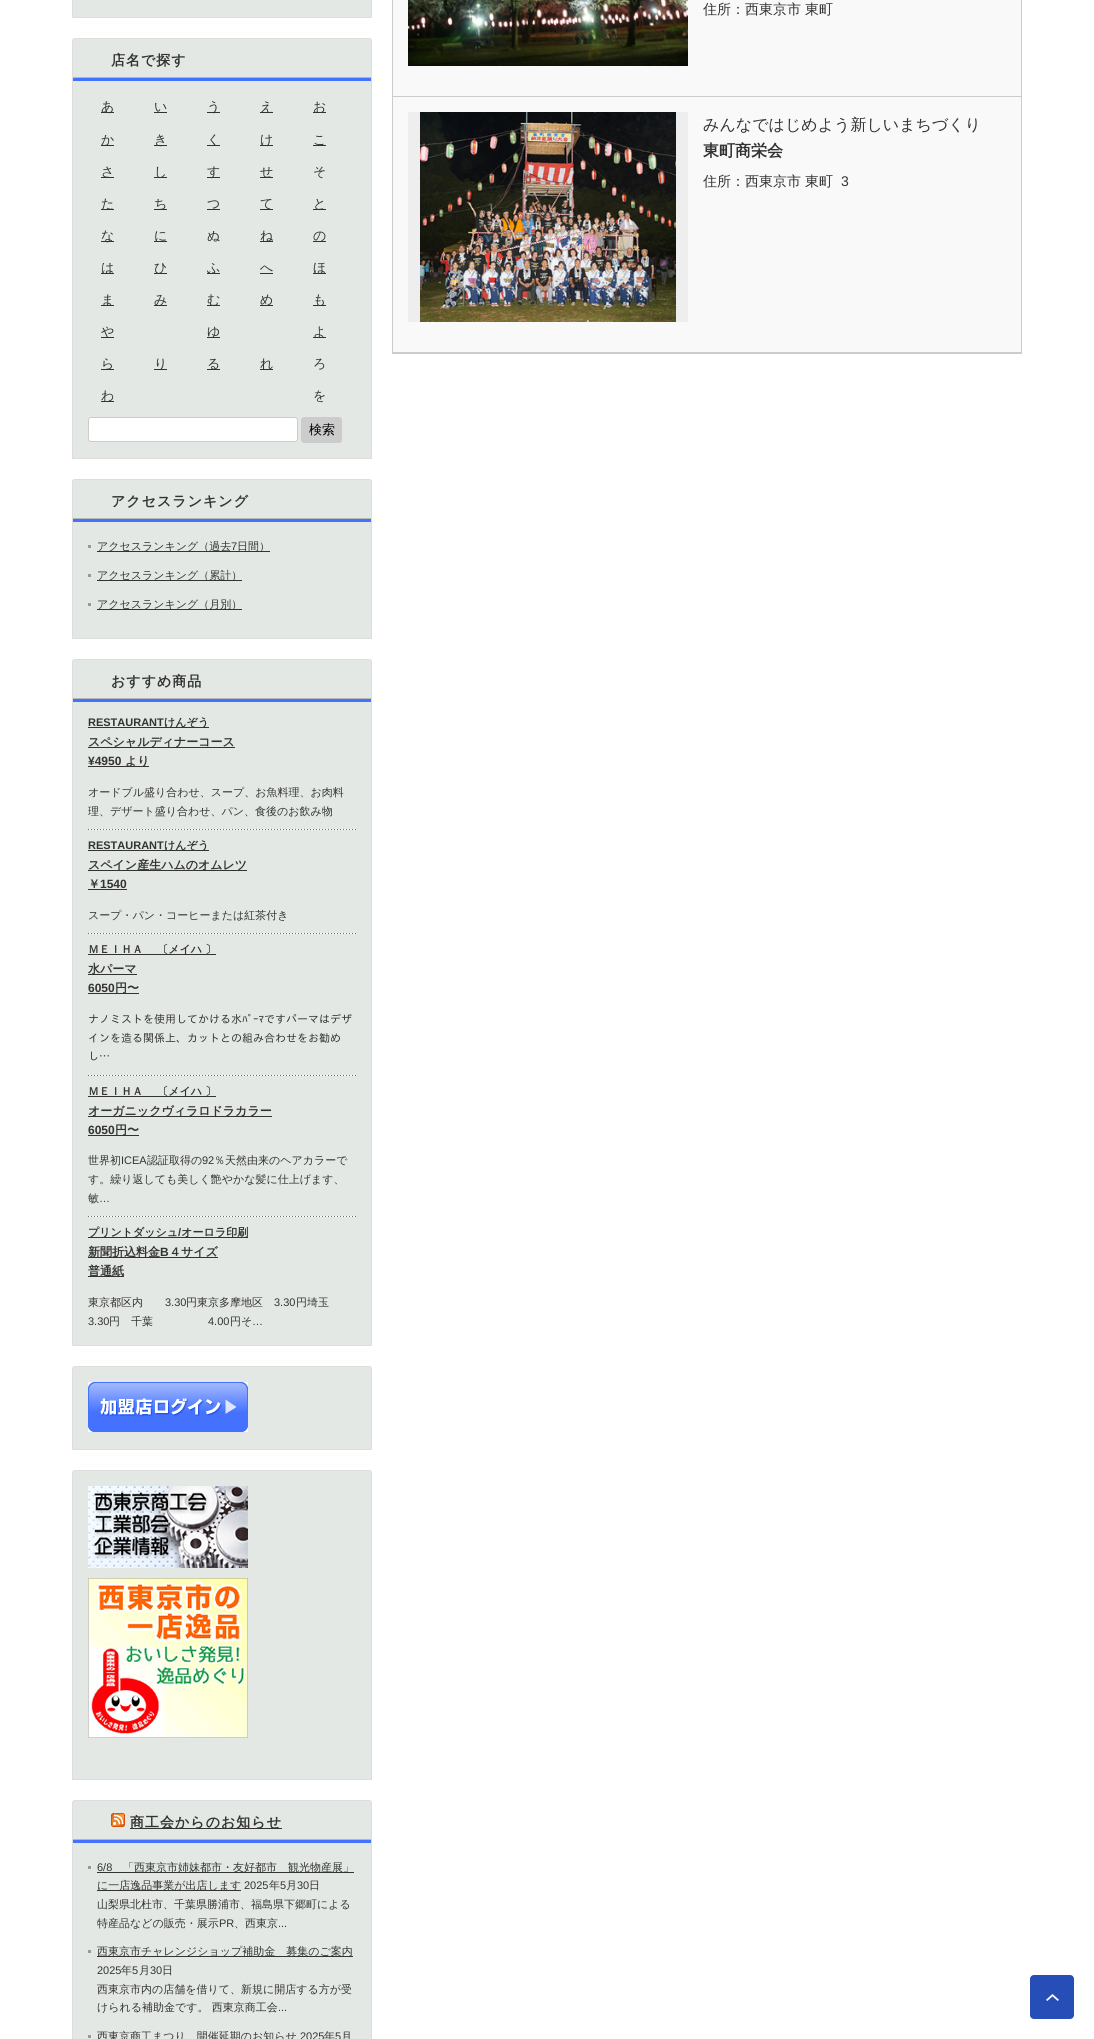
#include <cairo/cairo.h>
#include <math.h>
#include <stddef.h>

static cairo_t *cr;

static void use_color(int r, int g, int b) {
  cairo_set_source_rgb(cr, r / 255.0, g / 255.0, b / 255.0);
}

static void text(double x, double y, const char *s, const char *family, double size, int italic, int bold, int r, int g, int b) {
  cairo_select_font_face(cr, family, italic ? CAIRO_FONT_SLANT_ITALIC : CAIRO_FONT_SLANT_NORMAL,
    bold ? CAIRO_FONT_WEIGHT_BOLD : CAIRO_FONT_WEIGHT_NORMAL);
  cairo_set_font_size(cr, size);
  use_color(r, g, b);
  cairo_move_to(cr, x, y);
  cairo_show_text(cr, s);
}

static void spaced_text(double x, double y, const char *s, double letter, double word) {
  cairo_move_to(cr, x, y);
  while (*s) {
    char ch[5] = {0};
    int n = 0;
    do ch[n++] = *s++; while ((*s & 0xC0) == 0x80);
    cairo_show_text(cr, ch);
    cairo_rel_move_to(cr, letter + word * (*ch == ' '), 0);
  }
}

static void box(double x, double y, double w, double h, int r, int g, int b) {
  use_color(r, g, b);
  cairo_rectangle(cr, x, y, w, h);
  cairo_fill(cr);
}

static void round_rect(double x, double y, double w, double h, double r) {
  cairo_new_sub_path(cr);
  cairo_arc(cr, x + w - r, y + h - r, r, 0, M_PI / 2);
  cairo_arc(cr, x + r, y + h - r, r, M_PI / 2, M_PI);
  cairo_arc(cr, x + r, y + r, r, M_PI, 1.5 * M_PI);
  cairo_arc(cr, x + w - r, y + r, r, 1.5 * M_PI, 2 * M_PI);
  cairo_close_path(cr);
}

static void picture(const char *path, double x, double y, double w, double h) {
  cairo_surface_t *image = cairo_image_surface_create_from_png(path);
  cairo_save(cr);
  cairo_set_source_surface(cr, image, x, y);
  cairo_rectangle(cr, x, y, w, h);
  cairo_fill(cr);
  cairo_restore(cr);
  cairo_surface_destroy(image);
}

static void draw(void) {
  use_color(255, 255, 255);
  cairo_paint(cr);
  use_color(228, 232, 228);
  cairo_rectangle(cr, 72.5, -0.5, 299, 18);
  cairo_fill_preserve(cr);
  use_color(221, 221, 221);
  cairo_set_line_width(cr, 1);
  cairo_stroke(cr);
  use_color(228, 232, 228);
  cairo_new_path(cr);
  cairo_move_to(cr, 75, 38.5);
  cairo_line_to(cr, 369, 38.5);
  cairo_curve_to(cr, 370.5, 38.5, 371.5, 39.5, 371.5, 41);
  cairo_line_to(cr, 371.5, 458.5);
  cairo_line_to(cr, 72.5, 458.5);
  cairo_line_to(cr, 72.5, 41);
  cairo_curve_to(cr, 72.5, 39.5, 73.5, 38.5, 75, 38.5);
  cairo_close_path(cr);
  cairo_fill_preserve(cr);
  use_color(221, 221, 221);
  cairo_stroke(cr);
  box(73, 77, 298, 1, 182, 186, 182);
  box(73, 78, 298, 3, 68, 114, 255);
  box(101, 112, 13, 1, 51, 51, 51);
  box(154, 112, 13, 1, 51, 51, 51);
  box(207, 112, 13, 1, 51, 51, 51);
  box(260, 112, 13, 1, 51, 51, 51);
  box(313, 112, 13, 1, 51, 51, 51);
  box(101, 145, 13, 1, 51, 51, 51);
  box(154, 145, 13, 1, 51, 51, 51);
  box(207, 145, 13, 1, 51, 51, 51);
  box(260, 145, 13, 1, 51, 51, 51);
  box(313, 145, 13, 1, 51, 51, 51);
  box(101, 177, 13, 1, 51, 51, 51);
  box(154, 177, 13, 1, 51, 51, 51);
  box(207, 177, 13, 1, 51, 51, 51);
  box(260, 177, 13, 1, 51, 51, 51);
  box(101, 209, 13, 1, 51, 51, 51);
  box(154, 209, 13, 1, 51, 51, 51);
  box(207, 209, 13, 1, 51, 51, 51);
  box(260, 209, 13, 1, 51, 51, 51);
  box(313, 209, 13, 1, 51, 51, 51);
  box(101, 241, 13, 1, 51, 51, 51);
  box(154, 241, 13, 1, 51, 51, 51);
  box(260, 241, 13, 1, 51, 51, 51);
  box(313, 241, 13, 1, 51, 51, 51);
  box(101, 273, 13, 1, 51, 51, 51);
  box(154, 273, 13, 1, 51, 51, 51);
  box(207, 273, 13, 1, 51, 51, 51);
  box(260, 273, 13, 1, 51, 51, 51);
  box(313, 273, 13, 1, 51, 51, 51);
  box(101, 305, 13, 1, 51, 51, 51);
  box(154, 305, 13, 1, 51, 51, 51);
  box(207, 305, 13, 1, 51, 51, 51);
  box(260, 305, 13, 1, 51, 51, 51);
  box(313, 305, 13, 1, 51, 51, 51);
  box(101, 337, 13, 1, 51, 51, 51);
  box(207, 337, 13, 1, 51, 51, 51);
  box(313, 337, 13, 1, 51, 51, 51);
  box(101, 369, 13, 1, 51, 51, 51);
  box(154, 369, 13, 1, 51, 51, 51);
  box(207, 369, 13, 1, 51, 51, 51);
  box(260, 369, 13, 1, 51, 51, 51);
  box(101, 401, 13, 1, 51, 51, 51);
  use_color(255, 255, 255);
  round_rect(88.5, 417.5, 209, 24, 2.5);
  cairo_fill_preserve(cr);
  use_color(204, 204, 204);
  cairo_stroke(cr);
  round_rect(301, 417, 41, 26, 3);
  cairo_fill(cr);
  use_color(228, 232, 228);
  cairo_new_path(cr);
  cairo_move_to(cr, 75, 479.5);
  cairo_line_to(cr, 369, 479.5);
  cairo_curve_to(cr, 370.5, 479.5, 371.5, 480.5, 371.5, 482);
  cairo_line_to(cr, 371.5, 638.5);
  cairo_line_to(cr, 72.5, 638.5);
  cairo_line_to(cr, 72.5, 482);
  cairo_curve_to(cr, 72.5, 480.5, 73.5, 479.5, 75, 479.5);
  cairo_close_path(cr);
  cairo_fill_preserve(cr);
  use_color(221, 221, 221);
  cairo_stroke(cr);
  box(73, 518, 298, 1, 182, 186, 182);
  box(73, 519, 298, 3, 68, 114, 255);
  box(88, 545, 3, 3, 153, 153, 153);
  box(97, 551, 173, 1, 51, 51, 51);
  box(88, 574, 3, 3, 153, 153, 153);
  box(97, 580, 145, 1, 51, 51, 51);
  box(88, 603, 3, 3, 153, 153, 153);
  box(97, 609, 145, 1, 51, 51, 51);
  use_color(228, 232, 228);
  cairo_new_path(cr);
  cairo_move_to(cr, 75, 659.5);
  cairo_line_to(cr, 369, 659.5);
  cairo_curve_to(cr, 370.5, 659.5, 371.5, 660.5, 371.5, 662);
  cairo_line_to(cr, 371.5, 1345.5);
  cairo_line_to(cr, 72.5, 1345.5);
  cairo_line_to(cr, 72.5, 662);
  cairo_curve_to(cr, 72.5, 660.5, 73.5, 659.5, 75, 659.5);
  cairo_close_path(cr);
  cairo_fill_preserve(cr);
  use_color(221, 221, 221);
  cairo_stroke(cr);
  box(73, 698, 298, 1, 182, 186, 182);
  box(73, 699, 298, 3, 68, 114, 255);
  picture("img_01.png", 88, 829, 268, 1);
  box(88, 727, 121, 1, 51, 51, 51);
  box(88, 747, 147, 1, 51, 51, 51);
  box(88, 766, 61, 1, 51, 51, 51);
  picture("img_01.png", 88, 933, 268, 1);
  box(88, 850, 121, 1, 51, 51, 51);
  box(88, 870, 159, 1, 51, 51, 51);
  box(88, 889, 39, 1, 51, 51, 51);
  picture("img_01.png", 88, 1075, 268, 1);
  box(88, 954, 128, 1, 51, 51, 51);
  box(88, 974, 49, 1, 51, 51, 51);
  box(88, 993, 51, 1, 51, 51, 51);
  picture("img_01.png", 88, 1216, 268, 1);
  box(88, 1096, 128, 1, 51, 51, 51);
  box(88, 1116, 184, 1, 51, 51, 51);
  box(88, 1135, 51, 1, 51, 51, 51);
  box(88, 1237, 160, 1, 51, 51, 51);
  box(88, 1257, 130, 1, 51, 51, 51);
  box(88, 1276, 36, 1, 51, 51, 51);
  use_color(228, 232, 228);
  cairo_new_path(cr);
  cairo_move_to(cr, 75, 1366.5);
  cairo_line_to(cr, 369, 1366.5);
  cairo_curve_to(cr, 370.5, 1366.5, 371.5, 1367.5, 371.5, 1369);
  cairo_line_to(cr, 371.5, 1449.5);
  cairo_line_to(cr, 72.5, 1449.5);
  cairo_line_to(cr, 72.5, 1369);
  cairo_curve_to(cr, 72.5, 1367.5, 73.5, 1366.5, 75, 1366.5);
  cairo_close_path(cr);
  cairo_fill_preserve(cr);
  use_color(221, 221, 221);
  cairo_stroke(cr);
  picture("img_02.png", 88, 1382, 160, 50);
  use_color(228, 232, 228);
  cairo_new_path(cr);
  cairo_move_to(cr, 75, 1470.5);
  cairo_line_to(cr, 369, 1470.5);
  cairo_curve_to(cr, 370.5, 1470.5, 371.5, 1471.5, 371.5, 1473);
  cairo_line_to(cr, 371.5, 1779.5);
  cairo_line_to(cr, 72.5, 1779.5);
  cairo_line_to(cr, 72.5, 1473);
  cairo_curve_to(cr, 72.5, 1471.5, 73.5, 1470.5, 75, 1470.5);
  cairo_close_path(cr);
  cairo_fill_preserve(cr);
  use_color(221, 221, 221);
  cairo_stroke(cr);
  picture("img_03.png", 88, 1486, 160, 82);
  picture("img_04.png", 88, 1578, 160, 160);
  use_color(228, 232, 228);
  cairo_new_path(cr);
  cairo_move_to(cr, 75, 1800.5);
  cairo_line_to(cr, 369, 1800.5);
  cairo_curve_to(cr, 370.5, 1800.5, 371.5, 1801.5, 371.5, 1803);
  cairo_line_to(cr, 371.5, 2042.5);
  cairo_line_to(cr, 72.5, 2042.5);
  cairo_line_to(cr, 72.5, 1803);
  cairo_curve_to(cr, 72.5, 1801.5, 73.5, 1800.5, 75, 1800.5);
  cairo_close_path(cr);
  cairo_fill_preserve(cr);
  use_color(221, 221, 221);
  cairo_stroke(cr);
  box(73, 1839, 298, 1, 182, 186, 182);
  box(73, 1840, 298, 3, 68, 114, 255);
  picture("img_05.png", 111, 1813, 14, 14);
  box(130, 1828, 152, 1, 51, 51, 51);
  box(88, 1866, 3, 3, 153, 153, 153);
  box(97, 1872, 257, 1, 51, 51, 51);
  box(97, 1890, 144, 1, 51, 51, 51);
  box(88, 1950, 3, 3, 153, 153, 153);
  box(97, 1956, 256, 1, 51, 51, 51);
  box(88, 2035, 3, 3, 153, 153, 153);
  box(393, 0, 628, 352, 249, 249, 249);
  cairo_rectangle(cr, 392.5, -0.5, 629, 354);
  use_color(204, 204, 204);
  cairo_stroke(cr);
  box(393, 96, 628, 1, 204, 204, 204);
  picture("img_06.png", 408, 0, 280, 66);
  box(393, 352, 628, 1, 204, 204, 204);
  box(408, 112, 280, 210, 238, 238, 238);
  picture("img_07.png", 420, 112, 256, 210);
  use_color(38, 78, 182);
  round_rect(1030, 1975, 44, 44, 4);
  cairo_fill(cr);
  picture("img_08.png", 1046, 1994, 13, 7);
  cairo_select_font_face(cr, "WenQuanYi Zen Hei", CAIRO_FONT_SLANT_NORMAL, CAIRO_FONT_WEIGHT_BOLD);
  cairo_set_font_size(cr, 14);
  use_color(51, 51, 51);
  spaced_text(111, 65, "店名で探す", 1, 0);
  text(101, 111, "あ", "WenQuanYi Zen Hei Medium", 13, 0, 0, 51, 51, 51);
  text(154, 111, "い", "WenQuanYi Zen Hei Medium", 13, 0, 0, 51, 51, 51);
  text(207, 111, "う", "WenQuanYi Zen Hei Medium", 13, 0, 0, 51, 51, 51);
  text(260, 111, "え", "WenQuanYi Zen Hei Medium", 13, 0, 0, 51, 51, 51);
  text(313, 111, "お", "WenQuanYi Zen Hei Medium", 13, 0, 0, 51, 51, 51);
  text(101, 144, "か", "WenQuanYi Zen Hei Medium", 13, 0, 0, 51, 51, 51);
  text(154, 144, "き", "WenQuanYi Zen Hei Medium", 13, 0, 0, 51, 51, 51);
  text(207, 144, "く", "WenQuanYi Zen Hei Medium", 13, 0, 0, 51, 51, 51);
  text(260, 144, "け", "WenQuanYi Zen Hei Medium", 13, 0, 0, 51, 51, 51);
  text(313, 144, "こ", "WenQuanYi Zen Hei Medium", 13, 0, 0, 51, 51, 51);
  text(101, 176, "さ", "WenQuanYi Zen Hei Medium", 13, 0, 0, 51, 51, 51);
  text(154, 176, "し", "WenQuanYi Zen Hei Medium", 13, 0, 0, 51, 51, 51);
  text(207, 176, "す", "WenQuanYi Zen Hei Medium", 13, 0, 0, 51, 51, 51);
  text(260, 176, "せ", "WenQuanYi Zen Hei Medium", 13, 0, 0, 51, 51, 51);
  text(313, 176, "そ", "WenQuanYi Zen Hei Medium", 13, 0, 0, 51, 51, 51);
  text(101, 208, "た", "WenQuanYi Zen Hei Medium", 13, 0, 0, 51, 51, 51);
  text(154, 208, "ち", "WenQuanYi Zen Hei Medium", 13, 0, 0, 51, 51, 51);
  text(207, 208, "つ", "WenQuanYi Zen Hei Medium", 13, 0, 0, 51, 51, 51);
  text(260, 208, "て", "WenQuanYi Zen Hei Medium", 13, 0, 0, 51, 51, 51);
  text(313, 208, "と", "WenQuanYi Zen Hei Medium", 13, 0, 0, 51, 51, 51);
  text(101, 240, "な", "WenQuanYi Zen Hei Medium", 13, 0, 0, 51, 51, 51);
  text(154, 240, "に", "WenQuanYi Zen Hei Medium", 13, 0, 0, 51, 51, 51);
  text(207, 240, "ぬ", "WenQuanYi Zen Hei Medium", 13, 0, 0, 51, 51, 51);
  text(260, 240, "ね", "WenQuanYi Zen Hei Medium", 13, 0, 0, 51, 51, 51);
  text(313, 240, "の", "WenQuanYi Zen Hei Medium", 13, 0, 0, 51, 51, 51);
  text(101, 272, "は", "WenQuanYi Zen Hei Medium", 13, 0, 0, 51, 51, 51);
  text(154, 272, "ひ", "WenQuanYi Zen Hei Medium", 13, 0, 0, 51, 51, 51);
  text(207, 272, "ふ", "WenQuanYi Zen Hei Medium", 13, 0, 0, 51, 51, 51);
  text(260, 272, "へ", "WenQuanYi Zen Hei Medium", 13, 0, 0, 51, 51, 51);
  text(313, 272, "ほ", "WenQuanYi Zen Hei Medium", 13, 0, 0, 51, 51, 51);
  text(101, 304, "ま", "WenQuanYi Zen Hei Medium", 13, 0, 0, 51, 51, 51);
  text(154, 304, "み", "WenQuanYi Zen Hei Medium", 13, 0, 0, 51, 51, 51);
  text(207, 304, "む", "WenQuanYi Zen Hei Medium", 13, 0, 0, 51, 51, 51);
  text(260, 304, "め", "WenQuanYi Zen Hei Medium", 13, 0, 0, 51, 51, 51);
  text(313, 304, "も", "WenQuanYi Zen Hei Medium", 13, 0, 0, 51, 51, 51);
  text(101, 336, "や", "WenQuanYi Zen Hei Medium", 13, 0, 0, 51, 51, 51);
  text(207, 336, "ゆ", "WenQuanYi Zen Hei Medium", 13, 0, 0, 51, 51, 51);
  text(313, 336, "よ", "WenQuanYi Zen Hei Medium", 13, 0, 0, 51, 51, 51);
  text(101, 368, "ら", "WenQuanYi Zen Hei Medium", 13, 0, 0, 51, 51, 51);
  text(154, 368, "り", "WenQuanYi Zen Hei Medium", 13, 0, 0, 51, 51, 51);
  text(207, 368, "る", "WenQuanYi Zen Hei Medium", 13, 0, 0, 51, 51, 51);
  text(260, 368, "れ", "WenQuanYi Zen Hei Medium", 13, 0, 0, 51, 51, 51);
  text(313, 368, "ろ", "WenQuanYi Zen Hei Medium", 13, 0, 0, 51, 51, 51);
  text(101, 400, "わ", "WenQuanYi Zen Hei Medium", 13, 0, 0, 51, 51, 51);
  text(313, 400, "を", "WenQuanYi Zen Hei Medium", 13, 0, 0, 51, 51, 51);
  text(309, 434, "検索", "WenQuanYi Zen Hei Medium", 13, 0, 0, 0, 0, 0);
  cairo_select_font_face(cr, "WenQuanYi Zen Hei", CAIRO_FONT_SLANT_NORMAL, CAIRO_FONT_WEIGHT_BOLD);
  cairo_set_font_size(cr, 14);
  use_color(51, 51, 51);
  spaced_text(111, 506, "アクセスランキング", 1, 0);
  text(97, 550, "アクセスランキング（過去", "WenQuanYi Zen Hei Medium", 11, 0, 0, 51, 51, 51);
  text(231, 550, "7", "Liberation Sans", 11, 0, 0, 51, 51, 51);
  text(237, 550, "日間）", "WenQuanYi Zen Hei Medium", 11, 0, 0, 51, 51, 51);
  text(97, 579, "アクセスランキング（累計）", "WenQuanYi Zen Hei Medium", 11, 0, 0, 51, 51, 51);
  text(97, 608, "アクセスランキング（月別）", "WenQuanYi Zen Hei Medium", 11, 0, 0, 51, 51, 51);
  cairo_select_font_face(cr, "WenQuanYi Zen Hei", CAIRO_FONT_SLANT_NORMAL, CAIRO_FONT_WEIGHT_BOLD);
  cairo_set_font_size(cr, 14);
  spaced_text(111, 686, "おすすめ商品", 1, 0);
  text(88, 726, "RESTAURANT", "Liberation Sans", 11, 0, 1, 51, 51, 51);
  text(164, 726, "けんぞう", "WenQuanYi Zen Hei", 11, 0, 1, 51, 51, 51);
  text(88, 746, "スペシャルディナーコース", "WenQuanYi Zen Hei", 12, 0, 1, 51, 51, 51);
  text(88, 765, "¥4950", "Liberation Sans", 12, 0, 1, 51, 51, 51);
  text(125, 765, "より", "WenQuanYi Zen Hei", 12, 0, 1, 51, 51, 51);
  text(88, 796, "オードブル盛り合わせ、スープ、お魚料理、お肉料", "WenQuanYi Zen Hei Medium", 11, 0, 0, 51, 51, 51);
  text(88, 815, "理、デザート盛り合わせ、パン、食後のお飲み物", "WenQuanYi Zen Hei Medium", 11, 0, 0, 51, 51, 51);
  text(88, 849, "RESTAURANT", "Liberation Sans", 11, 0, 1, 51, 51, 51);
  text(164, 849, "けんぞう", "WenQuanYi Zen Hei", 11, 0, 1, 51, 51, 51);
  text(88, 869, "スペイン産生ハムのオムレツ", "WenQuanYi Zen Hei", 12, 0, 1, 51, 51, 51);
  text(88, 888, "￥", "WenQuanYi Zen Hei", 12, 0, 1, 51, 51, 51);
  text(100, 888, "1540", "Liberation Sans", 12, 0, 1, 51, 51, 51);
  text(88, 919, "スープ・パン・コーヒーまたは紅茶付き", "WenQuanYi Zen Hei Medium", 11, 0, 0, 51, 51, 51);
  text(88, 953, "ＭＥＩＨＡ　 〔メイハ 〕", "WenQuanYi Zen Hei", 11, 0, 1, 51, 51, 51);
  text(88, 973, "水パーマ", "WenQuanYi Zen Hei", 12, 0, 1, 51, 51, 51);
  text(88, 992, "6050", "Liberation Sans", 12, 0, 1, 51, 51, 51);
  text(115, 992, "円〜", "WenQuanYi Zen Hei", 12, 0, 1, 51, 51, 51);
  text(88, 1023, "ナノミストを使用してかける水ﾊﾟｰﾏですパーマはデザ", "IPAGothic", 11, 0, 0, 51, 51, 51);
  text(88, 1042, "インを造る関係上、カットとの組み合わせをお勧め", "IPAGothic", 11, 0, 0, 51, 51, 51);
  text(88, 1060, "し…", "IPAGothic", 11, 0, 0, 51, 51, 51);
  text(88, 1095, "ＭＥＩＨＡ　 〔メイハ 〕", "WenQuanYi Zen Hei", 11, 0, 1, 51, 51, 51);
  text(88, 1115, "オーガニックヴィラロドラカラー", "WenQuanYi Zen Hei", 12, 0, 1, 51, 51, 51);
  text(88, 1134, "6050", "Liberation Sans", 12, 0, 1, 51, 51, 51);
  text(115, 1134, "円〜", "WenQuanYi Zen Hei", 12, 0, 1, 51, 51, 51);
  text(88, 1164, "世界初", "WenQuanYi Zen Hei Medium", 11, 0, 0, 51, 51, 51);
  text(121, 1164, "ICEA", "Liberation Sans", 11, 0, 0, 51, 51, 51);
  text(147, 1164, "認証取得の", "WenQuanYi Zen Hei Medium", 11, 0, 0, 51, 51, 51);
  text(202, 1164, "92", "Liberation Sans", 11, 0, 0, 51, 51, 51);
  text(214, 1164, "％天然由来のヘアカラーで", "WenQuanYi Zen Hei Medium", 11, 0, 0, 51, 51, 51);
  text(88, 1183, "す。繰り返しても美しく艶やかな髪に仕上げます、", "WenQuanYi Zen Hei Medium", 11, 0, 0, 51, 51, 51);
  text(88, 1202, "敏", "WenQuanYi Zen Hei Medium", 11, 0, 0, 51, 51, 51);
  text(99, 1202, "…", "Liberation Sans", 11, 0, 0, 51, 51, 51);
  text(88, 1236, "プリントダッシュ オーロラ印刷", "WenQuanYi Zen Hei", 11, 0, 1, 51, 51, 51);
  text(178, 1236, "/", "Liberation Sans", 11, 0, 1, 51, 51, 51);
  text(88, 1256, "新聞折込料金", "WenQuanYi Zen Hei", 12, 0, 1, 51, 51, 51);
  text(160, 1256, "B", "Liberation Sans", 12, 0, 1, 51, 51, 51);
  text(169, 1256, "４サイズ", "WenQuanYi Zen Hei", 12, 0, 1, 51, 51, 51);
  text(88, 1275, "普通紙", "WenQuanYi Zen Hei", 12, 0, 1, 51, 51, 51);
  text(88, 1306, "東京都区内", "WenQuanYi Zen Hei Medium", 11, 0, 0, 51, 51, 51);
  text(165, 1306, "3.30", "Liberation Sans", 11, 0, 0, 51, 51, 51);
  text(186, 1306, "円東京多摩地区", "WenQuanYi Zen Hei Medium", 11, 0, 0, 51, 51, 51);
  text(274, 1306, "3.30", "Liberation Sans", 11, 0, 0, 51, 51, 51);
  text(296, 1306, "円埼玉", "WenQuanYi Zen Hei Medium", 11, 0, 0, 51, 51, 51);
  text(88, 1325, "3.30", "Liberation Sans", 11, 0, 0, 51, 51, 51);
  text(109, 1325, "円　千葉", "WenQuanYi Zen Hei Medium", 11, 0, 0, 51, 51, 51);
  text(208, 1325, "4.00", "Liberation Sans", 11, 0, 0, 51, 51, 51);
  text(230, 1325, "円そ", "WenQuanYi Zen Hei Medium", 11, 0, 0, 51, 51, 51);
  text(252, 1325, "…", "Liberation Sans", 11, 0, 0, 51, 51, 51);
  cairo_select_font_face(cr, "WenQuanYi Zen Hei", CAIRO_FONT_SLANT_NORMAL, CAIRO_FONT_WEIGHT_BOLD);
  cairo_set_font_size(cr, 14);
  spaced_text(130, 1827, "商工会からのお知らせ", 1, 0);
  text(97, 1871, "6/8", "Liberation Sans", 11, 0, 0, 51, 51, 51);
  text(123, 1871, "「西東京市姉妹都市・友好都市　観光物産展」", "WenQuanYi Zen Hei Medium", 11, 0, 0, 51, 51, 51);
  text(97, 1889, "に一店逸品事業が出店します", "WenQuanYi Zen Hei Medium", 11, 0, 0, 51, 51, 51);
  text(244, 1889, "2025", "Liberation Sans", 11, 0, 0, 51, 51, 51);
  text(269, 1889, "年", "WenQuanYi Zen Hei Medium", 11, 0, 0, 51, 51, 51);
  text(280, 1889, "5", "Liberation Sans", 11, 0, 0, 51, 51, 51);
  text(286, 1889, "月", "WenQuanYi Zen Hei Medium", 11, 0, 0, 51, 51, 51);
  text(297, 1889, "30", "Liberation Sans", 11, 0, 0, 51, 51, 51);
  text(309, 1889, "日", "WenQuanYi Zen Hei Medium", 11, 0, 0, 51, 51, 51);
  text(97, 1908, "山梨県北杜市、千葉県勝浦市、福島県下郷町による", "WenQuanYi Zen Hei Medium", 11, 0, 0, 51, 51, 51);
  text(97, 1927, "特産品などの販売・展示", "WenQuanYi Zen Hei Medium", 11, 0, 0, 51, 51, 51);
  text(219, 1927, "PR", "Liberation Sans", 11, 0, 0, 51, 51, 51);
  text(234, 1927, "、西東京", "WenQuanYi Zen Hei Medium", 11, 0, 0, 51, 51, 51);
  text(278, 1927, "...", "Liberation Sans", 11, 0, 0, 51, 51, 51);
  text(97, 1955, "西東京市チャレンジショップ補助金　募集のご案内", "WenQuanYi Zen Hei Medium", 11, 0, 0, 51, 51, 51);
  text(97, 1974, "2025", "Liberation Sans", 11, 0, 0, 51, 51, 51);
  text(121, 1974, "年", "WenQuanYi Zen Hei Medium", 11, 0, 0, 51, 51, 51);
  text(132, 1974, "5", "Liberation Sans", 11, 0, 0, 51, 51, 51);
  text(139, 1974, "月", "WenQuanYi Zen Hei Medium", 11, 0, 0, 51, 51, 51);
  text(150, 1974, "30", "Liberation Sans", 11, 0, 0, 51, 51, 51);
  text(162, 1974, "日", "WenQuanYi Zen Hei Medium", 11, 0, 0, 51, 51, 51);
  text(97, 1993, "西東京市内の店舗を借りて、新規に開店する方が受", "WenQuanYi Zen Hei Medium", 11, 0, 0, 51, 51, 51);
  text(97, 2011, "けられる補助金です。 西東京商工会", "WenQuanYi Zen Hei Medium", 11, 0, 0, 51, 51, 51);
  text(278, 2011, "...", "Liberation Sans", 11, 0, 0, 51, 51, 51);
  text(97, 2040, "西東京商工まつり　開催延期のお知らせ", "WenQuanYi Zen Hei Medium", 11, 0, 0, 51, 51, 51);
  text(300, 2040, "2025", "Liberation Sans", 11, 0, 0, 51, 51, 51);
  text(324, 2040, "年", "WenQuanYi Zen Hei Medium", 11, 0, 0, 51, 51, 51);
  text(335, 2040, "5", "Liberation Sans", 11, 0, 0, 51, 51, 51);
  text(341, 2040, "月", "WenQuanYi Zen Hei Medium", 11, 0, 0, 51, 51, 51);
  text(703, 14, "住所：西東京市", "WenQuanYi Zen Hei Medium", 14, 0, 0, 51, 51, 51);
  text(805, 14, "東町", "WenQuanYi Zen Hei Medium", 14, 0, 0, 51, 51, 51);
  text(703, 130, "みんなではじめよう新しいまちづくり", "WenQuanYi Zen Hei Medium", 16, 0, 0, 51, 51, 51);
  text(703, 156, "東町商栄会", "WenQuanYi Zen Hei", 16, 0, 1, 51, 51, 51);
  text(703, 186, "住所：西東京市", "WenQuanYi Zen Hei Medium", 14, 0, 0, 51, 51, 51);
  text(805, 186, "東町", "WenQuanYi Zen Hei Medium", 14, 0, 0, 51, 51, 51);
  text(841, 186, "3", "Liberation Sans", 14, 0, 0, 51, 51, 51);
}

int main(void) {
  cairo_surface_t *surface = cairo_image_surface_create(CAIRO_FORMAT_RGB24, 1094, 2039);
  cr = cairo_create(surface);
  cairo_font_options_t *options = cairo_font_options_create();
  cairo_font_options_set_hint_metrics(options, CAIRO_HINT_METRICS_OFF);
  cairo_font_options_set_hint_style(options, CAIRO_HINT_STYLE_NONE);
  cairo_set_font_options(cr, options);
  cairo_set_miter_limit(cr, 4);
  draw();
  cairo_surface_write_to_png(surface, "out.png");
  cairo_font_options_destroy(options);
  cairo_destroy(cr);
  cairo_surface_destroy(surface);
  return 0;
}
